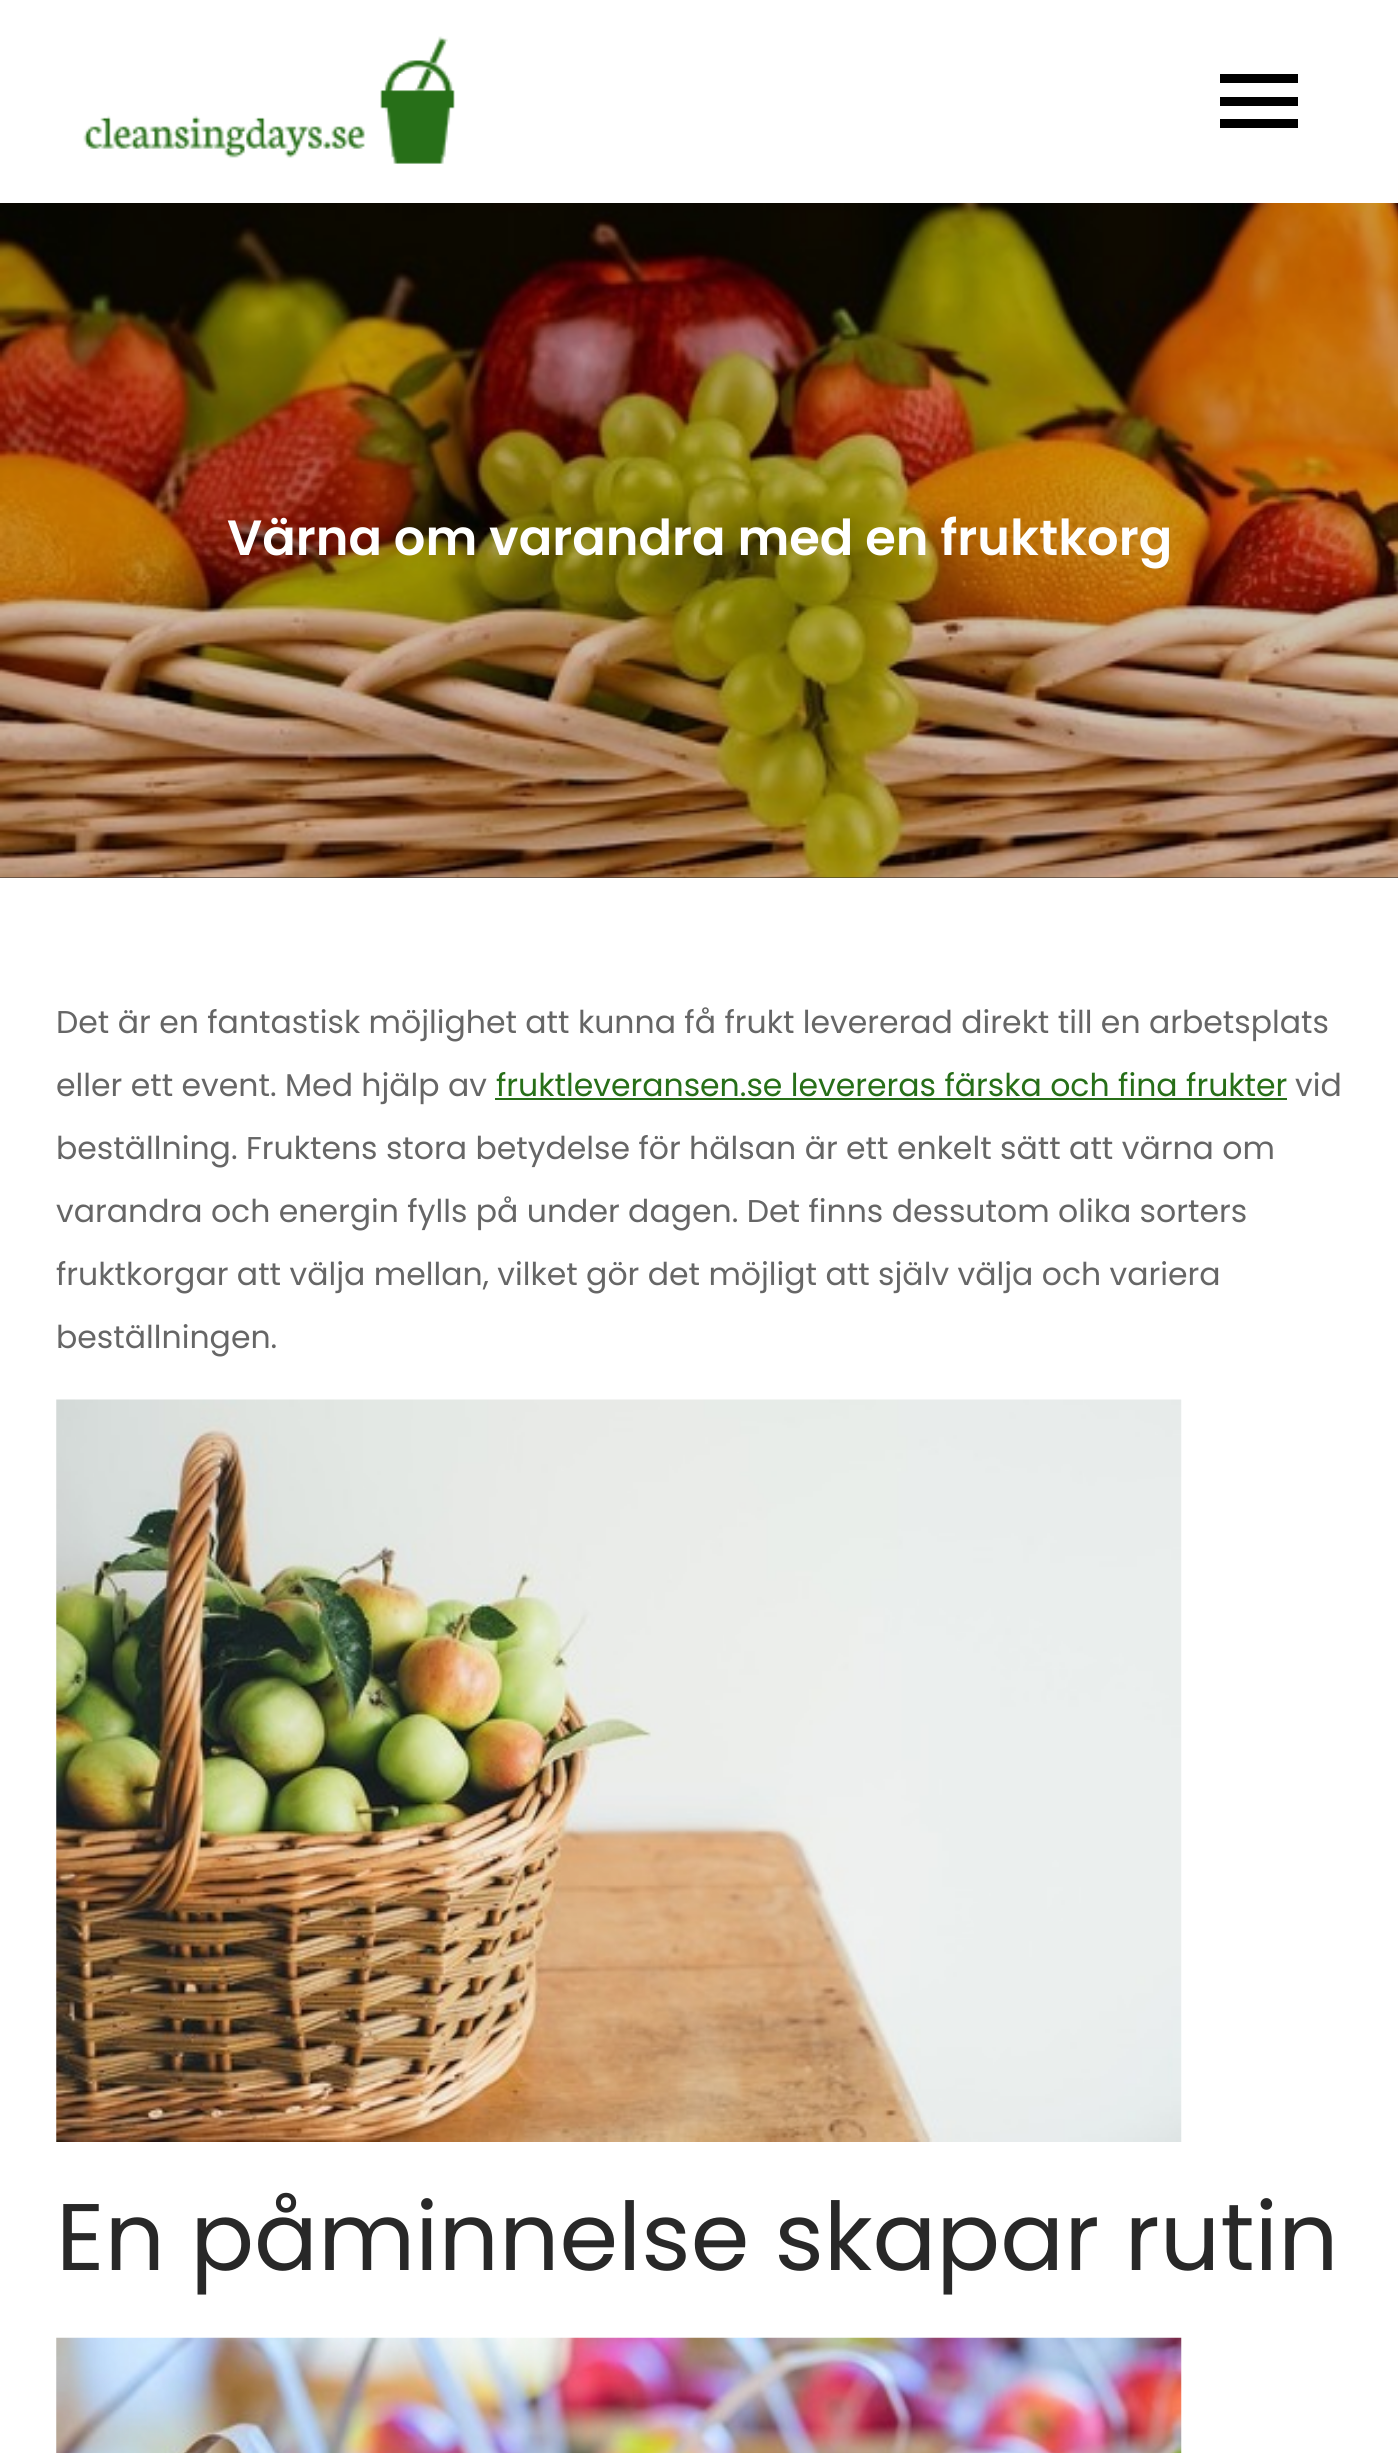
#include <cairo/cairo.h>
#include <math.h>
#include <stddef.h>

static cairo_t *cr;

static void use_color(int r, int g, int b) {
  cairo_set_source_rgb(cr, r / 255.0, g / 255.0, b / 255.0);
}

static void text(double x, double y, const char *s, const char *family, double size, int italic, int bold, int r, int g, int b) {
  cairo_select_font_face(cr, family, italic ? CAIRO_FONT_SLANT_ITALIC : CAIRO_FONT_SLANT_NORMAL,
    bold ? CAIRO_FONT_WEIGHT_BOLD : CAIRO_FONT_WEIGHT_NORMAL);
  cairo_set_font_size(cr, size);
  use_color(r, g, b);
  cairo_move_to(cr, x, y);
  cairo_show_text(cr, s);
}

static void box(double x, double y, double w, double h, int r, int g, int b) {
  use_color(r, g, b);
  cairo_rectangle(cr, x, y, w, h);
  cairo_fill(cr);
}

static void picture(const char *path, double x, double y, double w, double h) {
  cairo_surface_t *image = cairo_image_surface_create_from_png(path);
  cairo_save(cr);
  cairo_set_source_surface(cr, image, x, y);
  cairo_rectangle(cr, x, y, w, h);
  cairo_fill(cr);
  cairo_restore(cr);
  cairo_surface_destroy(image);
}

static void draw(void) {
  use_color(255, 255, 255);
  cairo_paint(cr);
  picture("img_01.png", 83, 36, 372, 128);
  box(1220, 97, 78, 9, 0, 0, 0);
  box(1220, 74, 78, 9, 0, 0, 0);
  box(1220, 119, 78, 9, 0, 0, 0);
  box(0, 877, 1398, 1, 41, 41, 41);
  picture("img_02.png", 0, 203, 1398, 675);
  box(495, 1098, 792, 2, 39, 111, 24);
  picture("img_03.png", 56, 1399, 1126, 743);
  picture("img_04.png", 56, 2337, 1126, 116);
  text(227, 555, "Värna om varandra med en fruktkorg", "Poppins SemiBold", 49.5, 0, 0, 255, 255, 255);
  text(56, 1033, "Det är en fantastisk möjlighet att kunna få frukt levererad direkt till en arbetsplats", "Poppins", 31.5, 0, 0, 102, 102, 102);
  text(56, 1096, "eller ett event. Med hjälp av", "Poppins", 31.5, 0, 0, 102, 102, 102);
  text(496, 1096, "fruktleveransen.se levereras färska och fina frukter", "Poppins", 31.5, 0, 0, 39, 111, 24);
  text(1295, 1096, "vid", "Poppins", 31.5, 0, 0, 102, 102, 102);
  text(56, 1159, "beställning. Fruktens stora betydelse för hälsan är ett enkelt sätt att värna om", "Poppins", 31.5, 0, 0, 102, 102, 102);
  text(56, 1222, "varandra och energin fylls på under dagen. Det finns dessutom olika sorters", "Poppins", 31.5, 0, 0, 102, 102, 102);
  text(56, 1285, "fruktkorgar att välja mellan, vilket gör det möjligt att själv välja och variera", "Poppins", 31.5, 0, 0, 102, 102, 102);
  text(56, 1348, "beställningen.", "Poppins", 31.5, 0, 0, 102, 102, 102);
  text(56, 2270, "En påminnelse skapar rutin", "Poppins", 94.5, 0, 0, 40, 40, 40);
}

int main(void) {
  cairo_surface_t *surface = cairo_image_surface_create(CAIRO_FORMAT_RGB24, 1398, 2453);
  cr = cairo_create(surface);
  cairo_font_options_t *options = cairo_font_options_create();
  cairo_font_options_set_hint_metrics(options, CAIRO_HINT_METRICS_OFF);
  cairo_font_options_set_hint_style(options, CAIRO_HINT_STYLE_NONE);
  cairo_set_font_options(cr, options);
  cairo_set_miter_limit(cr, 4);
  draw();
  cairo_surface_write_to_png(surface, "out.png");
  cairo_font_options_destroy(options);
  cairo_destroy(cr);
  cairo_surface_destroy(surface);
  return 0;
}
